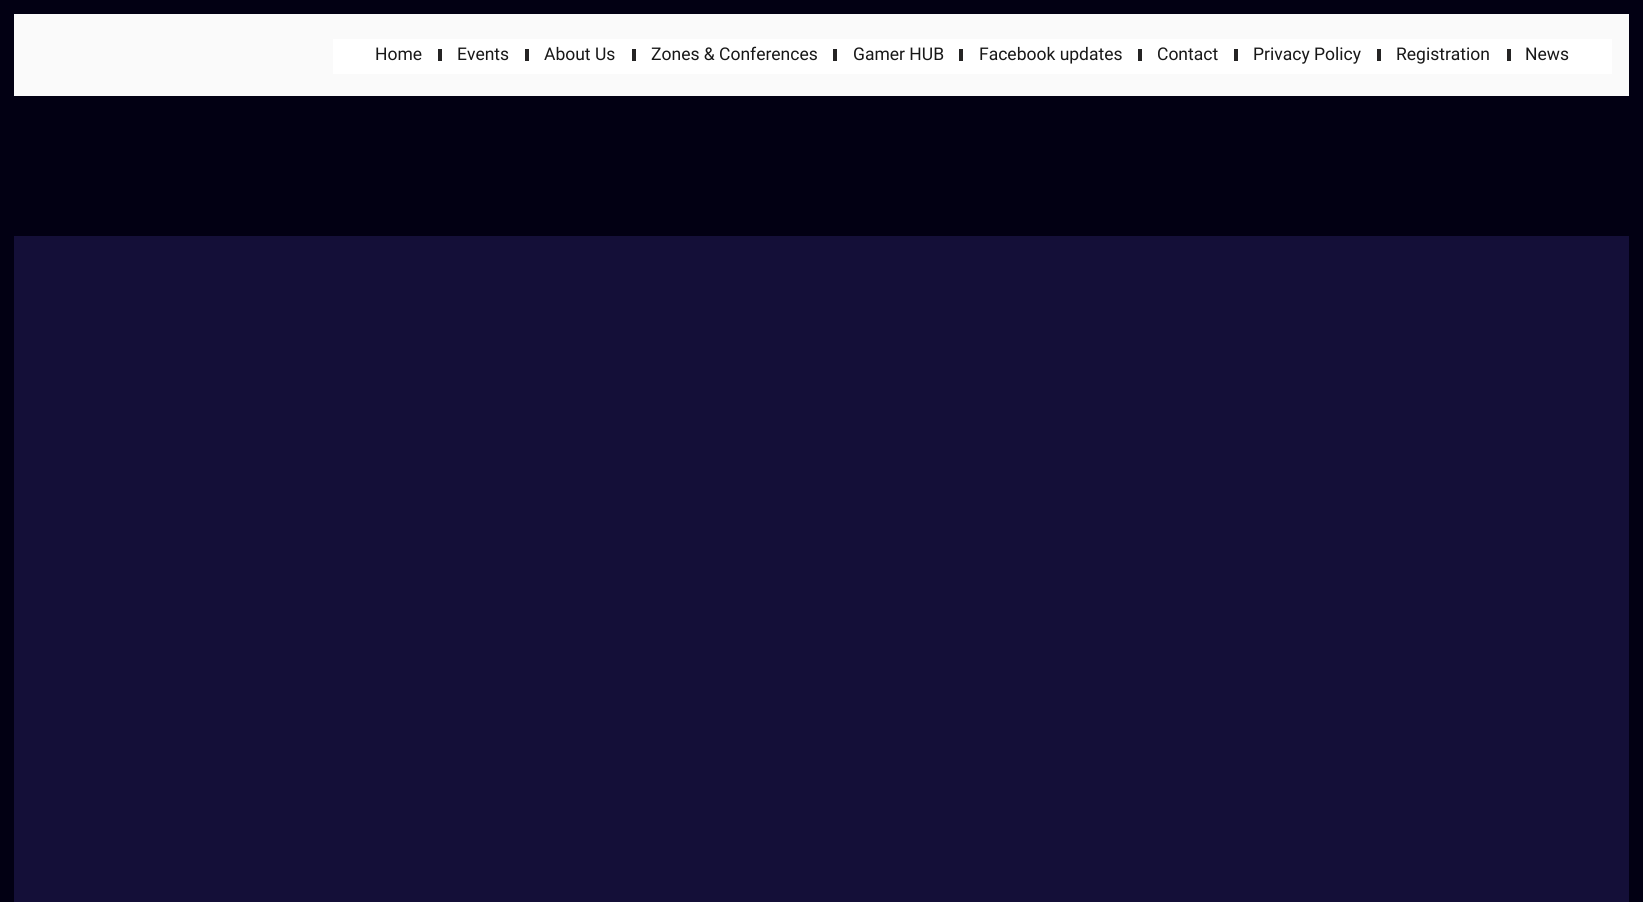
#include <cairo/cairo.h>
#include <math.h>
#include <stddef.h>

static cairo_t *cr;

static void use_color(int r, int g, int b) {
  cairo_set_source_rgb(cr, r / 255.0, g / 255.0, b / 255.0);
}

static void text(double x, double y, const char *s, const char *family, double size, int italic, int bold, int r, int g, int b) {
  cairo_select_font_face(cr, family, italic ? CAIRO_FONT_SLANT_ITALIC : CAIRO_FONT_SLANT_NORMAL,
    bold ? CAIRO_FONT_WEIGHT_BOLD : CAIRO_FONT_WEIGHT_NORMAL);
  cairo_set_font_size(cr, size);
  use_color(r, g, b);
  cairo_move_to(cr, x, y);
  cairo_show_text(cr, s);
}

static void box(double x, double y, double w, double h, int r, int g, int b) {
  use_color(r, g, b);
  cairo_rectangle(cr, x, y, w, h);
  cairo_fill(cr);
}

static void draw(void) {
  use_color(2, 0, 19);
  cairo_paint(cr);
  box(14, 14, 1615, 82, 250, 250, 250);
  box(333, 39, 1279, 35, 255, 255, 255);
  box(438, 49, 4, 12, 37, 36, 36);
  box(525, 49, 4, 12, 37, 36, 36);
  box(632, 49, 4, 12, 37, 36, 36);
  box(833, 49, 4, 12, 37, 36, 36);
  box(959, 49, 4, 12, 37, 36, 36);
  box(1138, 49, 4, 12, 37, 36, 36);
  box(1234, 49, 4, 12, 37, 36, 36);
  box(1377, 49, 4, 12, 37, 36, 36);
  box(1507, 49, 4, 12, 37, 36, 36);
  box(14, 236, 1615, 666, 20, 15, 56);
  text(375, 60, "Home", "Roboto", 17.5, 0, 0, 24, 24, 24);
  text(457, 60, "Events", "Roboto", 17.5, 0, 0, 24, 24, 24);
  text(544, 60, "About Us", "Roboto", 17.5, 0, 0, 24, 24, 24);
  text(651, 60, "Zones & Conferences", "Roboto", 17.5, 0, 0, 24, 24, 24);
  text(853, 60, "Gamer HUB", "Roboto", 17.5, 0, 0, 24, 24, 24);
  text(979, 60, "Facebook updates", "Roboto", 17.5, 0, 0, 24, 24, 24);
  text(1157, 60, "Contact", "Roboto", 17.5, 0, 0, 24, 24, 24);
  text(1253, 60, "Privacy Policy", "Roboto", 17.5, 0, 0, 24, 24, 24);
  text(1396, 60, "Registration", "Roboto", 17.5, 0, 0, 24, 24, 24);
  text(1525, 60, "News", "Roboto", 17.5, 0, 0, 24, 24, 24);
}

int main(void) {
  cairo_surface_t *surface = cairo_image_surface_create(CAIRO_FORMAT_RGB24, 1643, 902);
  cr = cairo_create(surface);
  cairo_font_options_t *options = cairo_font_options_create();
  cairo_font_options_set_hint_metrics(options, CAIRO_HINT_METRICS_OFF);
  cairo_font_options_set_hint_style(options, CAIRO_HINT_STYLE_NONE);
  cairo_set_font_options(cr, options);
  cairo_set_miter_limit(cr, 4);
  draw();
  cairo_surface_write_to_png(surface, "out.png");
  cairo_font_options_destroy(options);
  cairo_destroy(cr);
  cairo_surface_destroy(surface);
  return 0;
}
